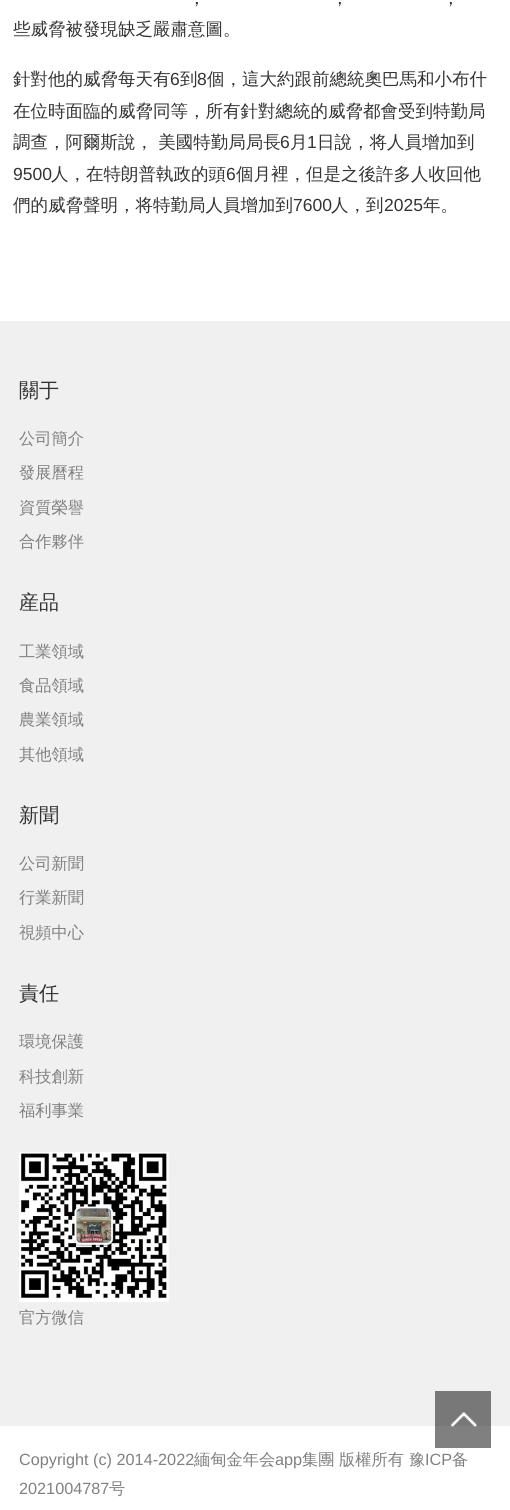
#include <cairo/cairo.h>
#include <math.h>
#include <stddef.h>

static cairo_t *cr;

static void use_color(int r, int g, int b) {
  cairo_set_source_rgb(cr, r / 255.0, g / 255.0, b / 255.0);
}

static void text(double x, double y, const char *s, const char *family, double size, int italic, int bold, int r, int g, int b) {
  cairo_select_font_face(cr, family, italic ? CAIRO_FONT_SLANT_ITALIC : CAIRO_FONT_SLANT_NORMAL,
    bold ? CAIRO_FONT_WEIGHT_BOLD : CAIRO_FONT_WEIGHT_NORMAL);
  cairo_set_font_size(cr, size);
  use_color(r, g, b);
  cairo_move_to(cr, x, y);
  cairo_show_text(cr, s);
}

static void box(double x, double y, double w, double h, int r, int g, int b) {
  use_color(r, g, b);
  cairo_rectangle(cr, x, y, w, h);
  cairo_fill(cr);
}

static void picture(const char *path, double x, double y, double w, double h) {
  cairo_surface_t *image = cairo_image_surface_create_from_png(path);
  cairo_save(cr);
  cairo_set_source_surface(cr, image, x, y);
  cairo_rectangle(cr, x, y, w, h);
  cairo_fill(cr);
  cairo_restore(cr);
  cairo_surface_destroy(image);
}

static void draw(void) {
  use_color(255, 255, 255);
  cairo_paint(cr);
  box(435, 1426, 56, 22, 128, 128, 128);
  box(0, 321, 510, 1105, 240, 240, 240);
  box(435, 1391, 56, 35, 120, 120, 120);
  picture("img_01.png", 19, 1152, 150, 150);
  picture("img_02.png", 451, 1412, 26, 15);
  text(188, 4, "，", "WenQuanYi Zen Hei Medium", 17.5, 0, 0, 51, 51, 51);
  text(331, 4, "，", "WenQuanYi Zen Hei Medium", 17.5, 0, 0, 51, 51, 51);
  text(442, 4, "，", "WenQuanYi Zen Hei Medium", 17.5, 0, 0, 51, 51, 51);
  text(13, 35, "些威脅被發現缺乏嚴肅意圖。", "WenQuanYi Zen Hei Medium", 17.5, 0, 0, 51, 51, 51);
  text(13, 85, "針對他的威脅每天有", "WenQuanYi Zen Hei Medium", 17.5, 0, 0, 51, 51, 51);
  text(170, 85, "6", "Liberation Sans", 17.5, 0, 0, 51, 51, 51);
  text(180, 85, "到", "WenQuanYi Zen Hei Medium", 17.5, 0, 0, 51, 51, 51);
  text(197, 85, "8", "Liberation Sans", 17.5, 0, 0, 51, 51, 51);
  text(207, 85, "個，這大約跟前總統奧巴馬和小布什", "WenQuanYi Zen Hei Medium", 17.5, 0, 0, 51, 51, 51);
  text(13, 117, "在位時面臨的威脅同等，所有針對總統的威脅都會受到特勤局", "WenQuanYi Zen Hei Medium", 17.5, 0, 0, 51, 51, 51);
  text(13, 148, "調查，阿爾斯說， 美國特勤局局長", "WenQuanYi Zen Hei Medium", 17.5, 0, 0, 51, 51, 51);
  text(280, 148, "6", "Liberation Sans", 17.5, 0, 0, 51, 51, 51);
  text(290, 148, "月", "WenQuanYi Zen Hei Medium", 17.5, 0, 0, 51, 51, 51);
  text(307, 148, "1", "Liberation Sans", 17.5, 0, 0, 51, 51, 51);
  text(317, 148, "日說，将人員增加到", "WenQuanYi Zen Hei Medium", 17.5, 0, 0, 51, 51, 51);
  text(13, 180, "9500", "Liberation Sans", 17.5, 0, 0, 51, 51, 51);
  text(51, 180, "人，在特朗普執政的頭", "WenQuanYi Zen Hei Medium", 17.5, 0, 0, 51, 51, 51);
  text(226, 180, "6", "Liberation Sans", 17.5, 0, 0, 51, 51, 51);
  text(236, 180, "個月裡，但是之後許多人收回他", "WenQuanYi Zen Hei Medium", 17.5, 0, 0, 51, 51, 51);
  text(13, 211, "們的威脅聲明，将特勤局人員增加到", "WenQuanYi Zen Hei Medium", 17.5, 0, 0, 51, 51, 51);
  text(293, 211, "7600", "Liberation Sans", 17.5, 0, 0, 51, 51, 51);
  text(331, 211, "人，到", "WenQuanYi Zen Hei Medium", 17.5, 0, 0, 51, 51, 51);
  text(384, 211, "2025", "Liberation Sans", 17.5, 0, 0, 51, 51, 51);
  text(423, 211, "年。", "WenQuanYi Zen Hei Medium", 17.5, 0, 0, 51, 51, 51);
  text(19, 397, "關于", "WenQuanYi Zen Hei Medium", 20, 0, 0, 51, 51, 51);
  text(19, 444, "公司簡介", "WenQuanYi Zen Hei Medium", 16.25, 0, 0, 128, 128, 128);
  text(19, 478, "發展曆程", "WenQuanYi Zen Hei Medium", 16.25, 0, 0, 128, 128, 128);
  text(19, 513, "資質榮譽", "WenQuanYi Zen Hei Medium", 16.25, 0, 0, 128, 128, 128);
  text(19, 547, "合作夥伴", "WenQuanYi Zen Hei Medium", 16.25, 0, 0, 128, 128, 128);
  text(19, 609, "産品", "WenQuanYi Zen Hei Medium", 20, 0, 0, 51, 51, 51);
  text(19, 657, "工業領域", "WenQuanYi Zen Hei Medium", 16.25, 0, 0, 128, 128, 128);
  text(19, 691, "食品領域", "WenQuanYi Zen Hei Medium", 16.25, 0, 0, 128, 128, 128);
  text(19, 725, "農業領域", "WenQuanYi Zen Hei Medium", 16.25, 0, 0, 128, 128, 128);
  text(19, 760, "其他領域", "WenQuanYi Zen Hei Medium", 16.25, 0, 0, 128, 128, 128);
  text(19, 822, "新聞", "WenQuanYi Zen Hei Medium", 20, 0, 0, 51, 51, 51);
  text(19, 869, "公司新聞", "WenQuanYi Zen Hei Medium", 16.25, 0, 0, 128, 128, 128);
  text(19, 903, "行業新聞", "WenQuanYi Zen Hei Medium", 16.25, 0, 0, 128, 128, 128);
  text(19, 938, "視頻中心", "WenQuanYi Zen Hei Medium", 16.25, 0, 0, 128, 128, 128);
  text(19, 1000, "責任", "WenQuanYi Zen Hei Medium", 20, 0, 0, 51, 51, 51);
  text(19, 1047, "環境保護", "WenQuanYi Zen Hei Medium", 16.25, 0, 0, 128, 128, 128);
  text(19, 1082, "科技創新", "WenQuanYi Zen Hei Medium", 16.25, 0, 0, 128, 128, 128);
  text(19, 1116, "福利事業", "WenQuanYi Zen Hei Medium", 16.25, 0, 0, 128, 128, 128);
  text(19, 1323, "官方微信", "WenQuanYi Zen Hei Medium", 16.25, 0, 0, 128, 128, 128);
  text(19, 1465, "Copyright (c) 2014-2022", "Liberation Sans", 16.25, 0, 0, 128, 128, 128);
  text(194, 1465, "緬甸金年会", "WenQuanYi Zen Hei Medium", 16.25, 0, 0, 128, 128, 128);
  text(275, 1465, "app", "Liberation Sans", 16.25, 0, 0, 128, 128, 128);
  text(302, 1465, "集團", "WenQuanYi Zen Hei Medium", 16.25, 0, 0, 128, 128, 128);
  text(339, 1465, "版權所有", "WenQuanYi Zen Hei Medium", 16.25, 0, 0, 128, 128, 128);
  text(409, 1465, "豫", "WenQuanYi Zen Hei Medium", 16.25, 0, 0, 128, 128, 128);
  text(425, 1465, "ICP", "Liberation Sans", 16.25, 0, 0, 128, 128, 128);
  text(452, 1465, "备", "WenQuanYi Zen Hei Medium", 16.25, 0, 0, 128, 128, 128);
  text(19, 1494, "2021004787", "Liberation Sans", 16.25, 0, 0, 128, 128, 128);
  text(109, 1494, "号", "WenQuanYi Zen Hei Medium", 16.25, 0, 0, 128, 128, 128);
}

int main(void) {
  cairo_surface_t *surface = cairo_image_surface_create(CAIRO_FORMAT_RGB24, 510, 1510);
  cr = cairo_create(surface);
  cairo_font_options_t *options = cairo_font_options_create();
  cairo_font_options_set_hint_metrics(options, CAIRO_HINT_METRICS_OFF);
  cairo_font_options_set_hint_style(options, CAIRO_HINT_STYLE_NONE);
  cairo_set_font_options(cr, options);
  cairo_set_miter_limit(cr, 4);
  draw();
  cairo_surface_write_to_png(surface, "out.png");
  cairo_font_options_destroy(options);
  cairo_destroy(cr);
  cairo_surface_destroy(surface);
  return 0;
}
